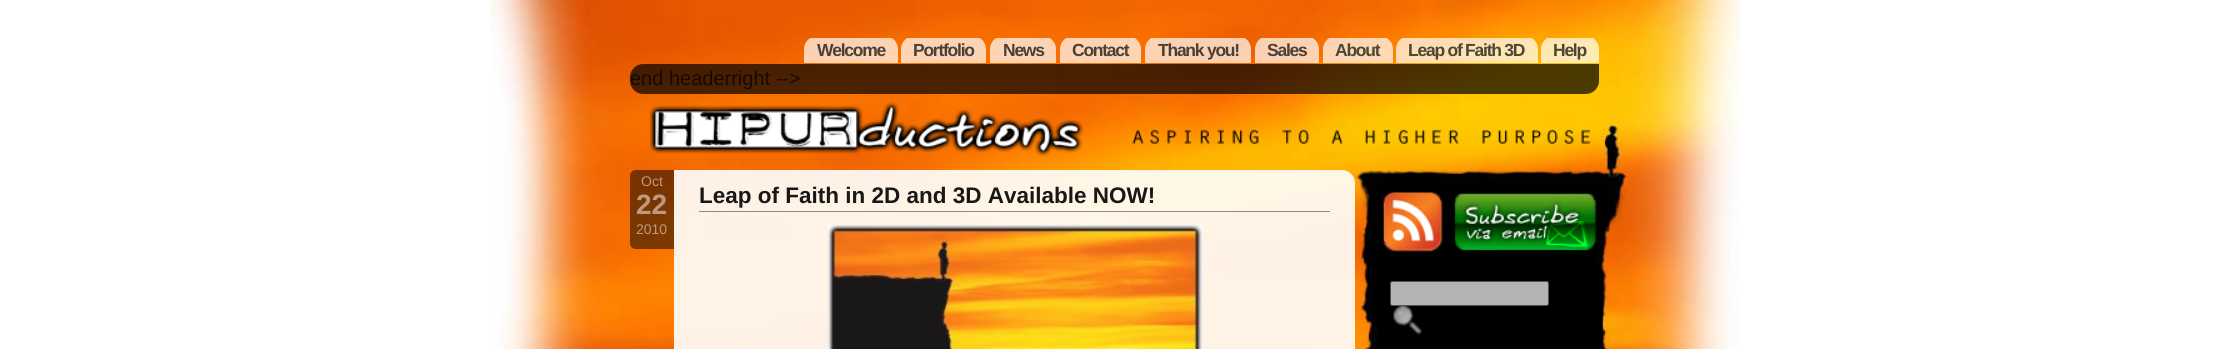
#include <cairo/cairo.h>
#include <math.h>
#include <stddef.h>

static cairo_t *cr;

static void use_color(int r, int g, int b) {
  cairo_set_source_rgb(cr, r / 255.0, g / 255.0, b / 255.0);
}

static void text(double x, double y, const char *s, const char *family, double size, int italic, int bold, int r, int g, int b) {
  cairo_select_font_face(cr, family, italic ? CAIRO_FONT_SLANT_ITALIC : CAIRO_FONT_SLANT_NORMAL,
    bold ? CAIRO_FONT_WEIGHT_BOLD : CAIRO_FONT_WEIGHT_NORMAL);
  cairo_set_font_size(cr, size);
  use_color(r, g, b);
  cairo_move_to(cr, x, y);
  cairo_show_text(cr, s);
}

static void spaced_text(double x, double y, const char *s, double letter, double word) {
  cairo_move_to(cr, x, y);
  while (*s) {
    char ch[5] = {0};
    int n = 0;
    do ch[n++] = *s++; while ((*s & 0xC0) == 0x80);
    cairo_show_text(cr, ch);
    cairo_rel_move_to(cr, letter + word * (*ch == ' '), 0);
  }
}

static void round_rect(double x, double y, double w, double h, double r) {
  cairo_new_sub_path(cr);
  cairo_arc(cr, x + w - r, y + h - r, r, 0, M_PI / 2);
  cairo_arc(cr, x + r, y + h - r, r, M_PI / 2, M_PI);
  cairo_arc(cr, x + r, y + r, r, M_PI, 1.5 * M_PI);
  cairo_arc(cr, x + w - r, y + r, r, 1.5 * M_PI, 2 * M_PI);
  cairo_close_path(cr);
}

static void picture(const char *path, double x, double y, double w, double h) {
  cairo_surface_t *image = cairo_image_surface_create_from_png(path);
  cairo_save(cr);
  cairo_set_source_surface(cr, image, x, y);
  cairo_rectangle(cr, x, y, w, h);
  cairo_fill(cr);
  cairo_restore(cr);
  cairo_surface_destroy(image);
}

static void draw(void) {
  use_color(255, 255, 255);
  cairo_paint(cr);
  picture("img_01.png", 490, 0, 1250, 349);
  cairo_save(cr);
  cairo_rectangle(cr, 630, 38, 969, 26);
  cairo_clip(cr);
  cairo_set_source_rgba(cr, 1, 1, 1, 0.7);
  cairo_new_path(cr);
  cairo_move_to(cr, 817, 36);
  cairo_line_to(cr, 885, 36);
  cairo_curve_to(cr, 892, 36, 898, 42, 898, 49);
  cairo_line_to(cr, 898, 63);
  cairo_line_to(cr, 804, 63);
  cairo_line_to(cr, 804, 49);
  cairo_curve_to(cr, 804, 42, 810, 36, 817, 36);
  cairo_close_path(cr);
  cairo_fill(cr);
  cairo_new_path(cr);
  cairo_move_to(cr, 914, 36);
  cairo_line_to(cr, 973, 36);
  cairo_curve_to(cr, 980, 36, 986, 42, 986, 49);
  cairo_line_to(cr, 986, 63);
  cairo_line_to(cr, 901, 63);
  cairo_line_to(cr, 901, 49);
  cairo_curve_to(cr, 901, 42, 907, 36, 914, 36);
  cairo_close_path(cr);
  cairo_fill(cr);
  cairo_new_path(cr);
  cairo_move_to(cr, 1003, 36);
  cairo_line_to(cr, 1043, 36);
  cairo_curve_to(cr, 1050, 36, 1056, 42, 1056, 49);
  cairo_line_to(cr, 1056, 63);
  cairo_line_to(cr, 990, 63);
  cairo_line_to(cr, 990, 49);
  cairo_curve_to(cr, 990, 42, 996, 36, 1003, 36);
  cairo_close_path(cr);
  cairo_fill(cr);
  cairo_new_path(cr);
  cairo_move_to(cr, 1073, 36);
  cairo_line_to(cr, 1128, 36);
  cairo_curve_to(cr, 1135, 36, 1141, 42, 1141, 49);
  cairo_line_to(cr, 1141, 63);
  cairo_line_to(cr, 1060, 63);
  cairo_line_to(cr, 1060, 49);
  cairo_curve_to(cr, 1060, 42, 1066, 36, 1073, 36);
  cairo_close_path(cr);
  cairo_fill(cr);
  cairo_new_path(cr);
  cairo_move_to(cr, 1158, 36);
  cairo_line_to(cr, 1238, 36);
  cairo_curve_to(cr, 1245, 36, 1251, 42, 1251, 49);
  cairo_line_to(cr, 1251, 63);
  cairo_line_to(cr, 1145, 63);
  cairo_line_to(cr, 1145, 49);
  cairo_curve_to(cr, 1145, 42, 1151, 36, 1158, 36);
  cairo_close_path(cr);
  cairo_fill(cr);
  cairo_new_path(cr);
  cairo_move_to(cr, 1268, 36);
  cairo_line_to(cr, 1306, 36);
  cairo_curve_to(cr, 1313, 36, 1319, 42, 1319, 49);
  cairo_line_to(cr, 1319, 63);
  cairo_line_to(cr, 1255, 63);
  cairo_line_to(cr, 1255, 49);
  cairo_curve_to(cr, 1255, 42, 1261, 36, 1268, 36);
  cairo_close_path(cr);
  cairo_fill(cr);
  cairo_new_path(cr);
  cairo_move_to(cr, 1336, 36);
  cairo_line_to(cr, 1380, 36);
  cairo_curve_to(cr, 1387, 36, 1393, 42, 1393, 49);
  cairo_line_to(cr, 1393, 63);
  cairo_line_to(cr, 1323, 63);
  cairo_line_to(cr, 1323, 49);
  cairo_curve_to(cr, 1323, 42, 1329, 36, 1336, 36);
  cairo_close_path(cr);
  cairo_fill(cr);
  cairo_new_path(cr);
  cairo_move_to(cr, 1409, 36);
  cairo_line_to(cr, 1525, 36);
  cairo_curve_to(cr, 1532, 36, 1538, 42, 1538, 49);
  cairo_line_to(cr, 1538, 63);
  cairo_line_to(cr, 1396, 63);
  cairo_line_to(cr, 1396, 49);
  cairo_curve_to(cr, 1396, 42, 1402, 36, 1409, 36);
  cairo_close_path(cr);
  cairo_fill(cr);
  cairo_new_path(cr);
  cairo_move_to(cr, 1554, 36);
  cairo_line_to(cr, 1586, 36);
  cairo_curve_to(cr, 1593, 36, 1599, 42, 1599, 49);
  cairo_line_to(cr, 1599, 63);
  cairo_line_to(cr, 1541, 63);
  cairo_line_to(cr, 1541, 49);
  cairo_curve_to(cr, 1541, 42, 1547, 36, 1554, 36);
  cairo_close_path(cr);
  cairo_fill(cr);
  cairo_restore(cr);
  cairo_set_source_rgba(cr, 0, 0, 0, 0.7);
  cairo_new_path(cr);
  cairo_move_to(cr, 643, 64);
  cairo_line_to(cr, 1599, 64);
  cairo_line_to(cr, 1599, 81);
  cairo_curve_to(cr, 1599, 88, 1593, 94, 1586, 94);
  cairo_line_to(cr, 643, 94);
  cairo_curve_to(cr, 636, 94, 630, 88, 630, 81);
  cairo_line_to(cr, 630, 77);
  cairo_curve_to(cr, 630, 70, 636, 64, 643, 64);
  cairo_close_path(cr);
  cairo_fill(cr);
  picture("img_02.png", 649, 102, 942, 55);
  cairo_set_source_rgba(cr, 0, 0, 0, 0.5);
  cairo_new_path(cr);
  cairo_move_to(cr, 636, 170);
  cairo_line_to(cr, 674, 170);
  cairo_line_to(cr, 674, 249);
  cairo_line_to(cr, 636, 249);
  cairo_curve_to(cr, 632.5, 249, 630, 246.5, 630, 243);
  cairo_line_to(cr, 630, 176);
  cairo_curve_to(cr, 630, 172.5, 632.5, 170, 636, 170);
  cairo_close_path(cr);
  cairo_fill(cr);
  cairo_set_source_rgba(cr, 1, 1, 1, 0.9);
  cairo_new_path(cr);
  cairo_move_to(cr, 674, 170);
  cairo_line_to(cr, 1342, 170);
  cairo_curve_to(cr, 1349, 170, 1355, 176, 1355, 183);
  cairo_line_to(cr, 1355, 349);
  cairo_curve_to(cr, 1355, 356, 1349, 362, 1342, 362);
  cairo_line_to(cr, 687, 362);
  cairo_curve_to(cr, 680, 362, 674, 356, 674, 349);
  cairo_close_path(cr);
  cairo_fill(cr);
  cairo_set_source_rgba(cr, 0.502, 0.502, 0.502, 0.9);
  cairo_rectangle(cr, 699, 211, 631, 1);
  cairo_fill(cr);
  picture("img_03.png", 827, 225, 376, 124);
  picture("img_04.png", 1382, 192, 61, 60);
  picture("img_05.png", 1453, 193, 144, 58);
  cairo_set_source_rgba(cr, 0, 0, 0, 0.7);
  round_rect(1378, 263, 225, 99, 13);
  cairo_fill(cr);
  use_color(179, 179, 179);
  round_rect(1390.5, 281.5, 158, 24, 2);
  cairo_fill_preserve(cr);
  use_color(83, 83, 83);
  cairo_set_line_width(cr, 1);
  cairo_stroke(cr);
  picture("img_06.png", 1393, 306, 29, 29);
  cairo_select_font_face(cr, "Liberation Sans", CAIRO_FONT_SLANT_NORMAL, CAIRO_FONT_WEIGHT_BOLD);
  cairo_set_font_size(cr, 17.5);
  use_color(75, 63, 54);
  spaced_text(817, 56, "Welcome", -1.25, 0);
  spaced_text(913, 56, "Portfolio", -1.25, 0);
  spaced_text(1003, 56, "News", -1.25, 0);
  spaced_text(1072, 56, "Contact", -1.25, 0);
  spaced_text(1158, 56, "Thank you!", -1.25, 0);
  spaced_text(1267, 56, "Sales", -1.25, 0);
  use_color(76, 70, 54);
  spaced_text(1335, 56, "About", -1.25, 0);
  spaced_text(1408, 56, "Leap of Faith 3D", -1.25, 0);
  spaced_text(1553, 56, "Help", -1.25, 0);
  text(630, 85, "end headerright -->", "Liberation Sans", 20, 0, 0, 22, 9, 0);
  text(641, 186, "Oct", "Liberation Sans", 14, 0, 0, 188, 153, 128);
  text(636, 214, "22", "Liberation Sans", 28, 0, 1, 188, 153, 128);
  text(636, 234, "2010", "Liberation Sans", 14, 0, 0, 188, 153, 128);
  text(699, 203, "Leap of Faith in 2D and 3D Available NOW!", "Liberation Sans", 22.5, 0, 1, 25, 24, 23);
}

int main(void) {
  cairo_surface_t *surface = cairo_image_surface_create(CAIRO_FORMAT_RGB24, 2228, 349);
  cr = cairo_create(surface);
  cairo_font_options_t *options = cairo_font_options_create();
  cairo_font_options_set_hint_metrics(options, CAIRO_HINT_METRICS_OFF);
  cairo_font_options_set_hint_style(options, CAIRO_HINT_STYLE_NONE);
  cairo_set_font_options(cr, options);
  cairo_set_miter_limit(cr, 4);
  draw();
  cairo_surface_write_to_png(surface, "out.png");
  cairo_font_options_destroy(options);
  cairo_destroy(cr);
  cairo_surface_destroy(surface);
  return 0;
}
